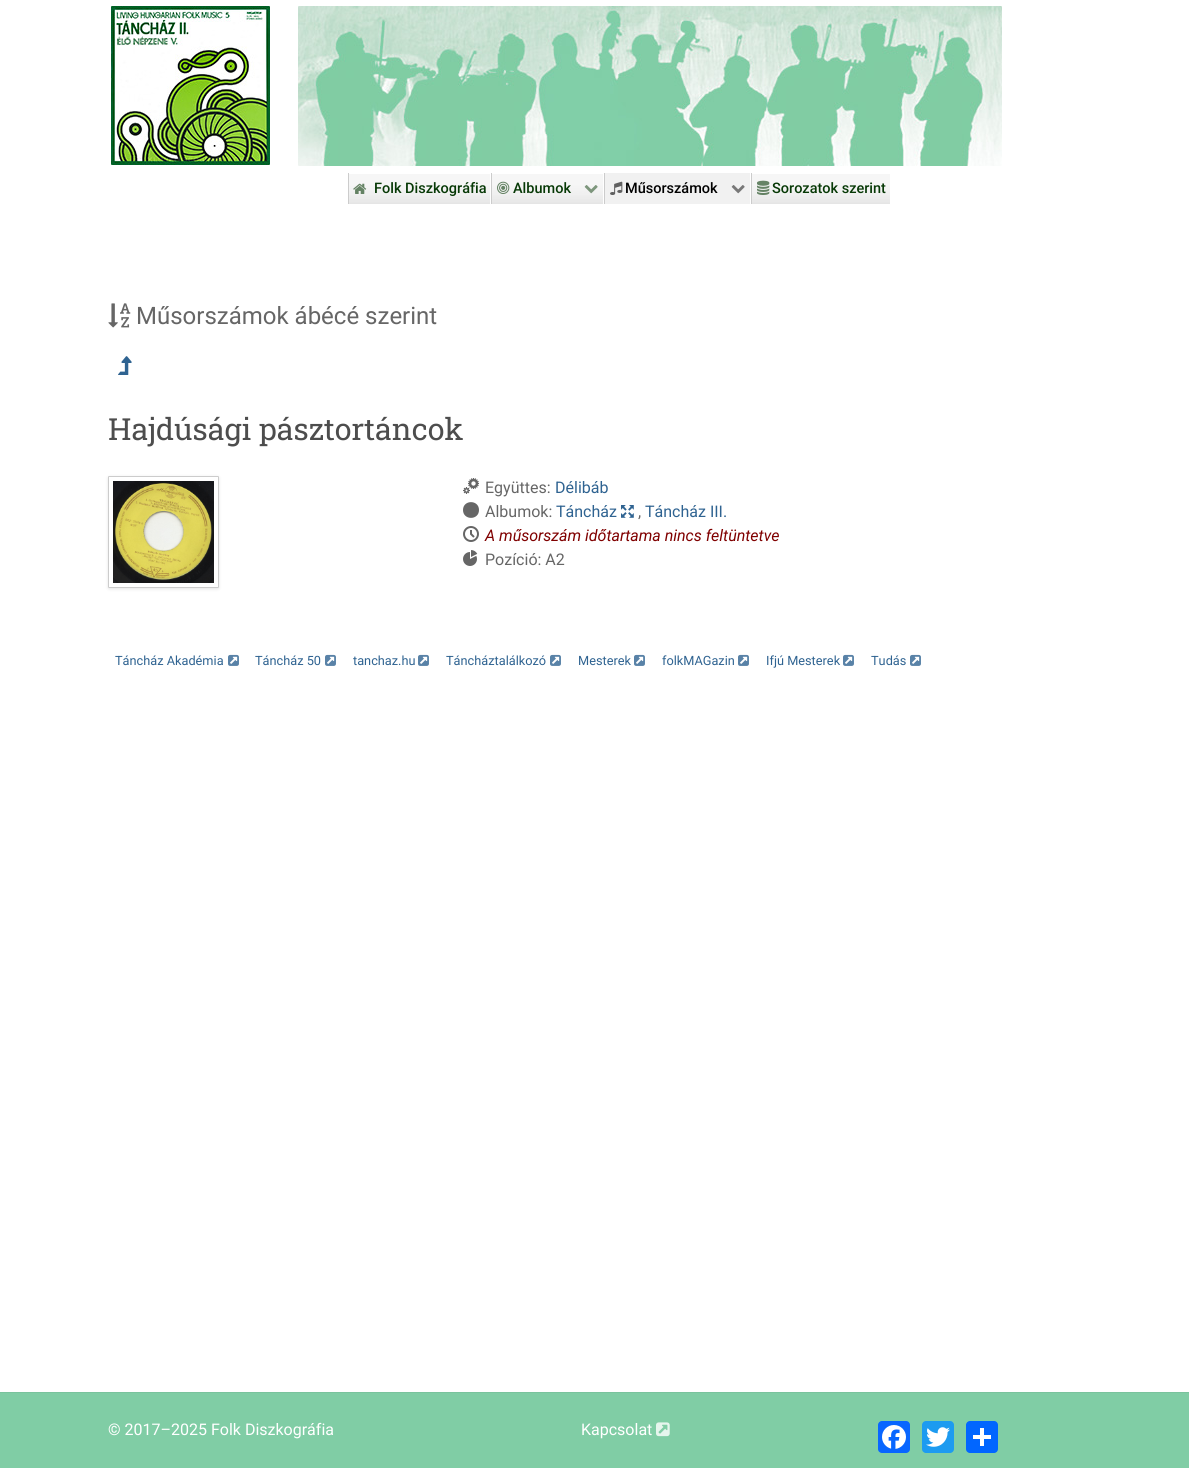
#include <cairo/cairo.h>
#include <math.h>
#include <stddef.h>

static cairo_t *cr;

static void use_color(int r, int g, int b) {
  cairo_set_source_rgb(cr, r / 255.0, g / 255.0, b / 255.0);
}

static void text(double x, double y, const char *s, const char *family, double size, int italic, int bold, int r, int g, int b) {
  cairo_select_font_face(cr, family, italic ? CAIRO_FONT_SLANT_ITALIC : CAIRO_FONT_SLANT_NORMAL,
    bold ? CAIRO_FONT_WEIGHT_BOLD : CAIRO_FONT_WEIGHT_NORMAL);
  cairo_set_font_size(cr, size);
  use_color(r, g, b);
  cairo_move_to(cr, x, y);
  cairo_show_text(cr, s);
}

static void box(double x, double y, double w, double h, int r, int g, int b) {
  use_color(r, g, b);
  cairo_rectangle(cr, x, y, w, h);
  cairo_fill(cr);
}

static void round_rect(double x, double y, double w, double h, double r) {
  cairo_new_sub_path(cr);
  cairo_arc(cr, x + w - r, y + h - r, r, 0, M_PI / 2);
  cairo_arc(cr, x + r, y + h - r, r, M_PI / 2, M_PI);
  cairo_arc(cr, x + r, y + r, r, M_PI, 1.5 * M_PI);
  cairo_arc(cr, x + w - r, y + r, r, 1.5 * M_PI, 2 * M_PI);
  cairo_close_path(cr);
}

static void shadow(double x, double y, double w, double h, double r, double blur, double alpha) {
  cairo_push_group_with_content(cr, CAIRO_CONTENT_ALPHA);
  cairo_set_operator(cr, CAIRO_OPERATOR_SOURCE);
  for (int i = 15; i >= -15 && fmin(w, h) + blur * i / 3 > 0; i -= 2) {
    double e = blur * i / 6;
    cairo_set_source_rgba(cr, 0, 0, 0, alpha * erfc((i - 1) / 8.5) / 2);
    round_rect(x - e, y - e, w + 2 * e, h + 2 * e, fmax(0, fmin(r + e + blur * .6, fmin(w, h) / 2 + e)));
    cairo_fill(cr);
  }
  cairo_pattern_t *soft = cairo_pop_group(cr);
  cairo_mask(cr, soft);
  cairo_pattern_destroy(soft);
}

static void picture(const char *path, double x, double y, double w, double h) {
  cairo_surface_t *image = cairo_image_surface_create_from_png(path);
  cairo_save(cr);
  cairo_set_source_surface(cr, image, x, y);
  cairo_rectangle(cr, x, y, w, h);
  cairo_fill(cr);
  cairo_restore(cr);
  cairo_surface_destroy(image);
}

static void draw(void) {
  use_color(255, 255, 255);
  cairo_paint(cr);
  picture("img_01.png", 111, 6, 159, 159);
  picture("img_02.png", 298, 6, 704, 160);
  picture("img_03.png", 349, 174, 141, 30);
  box(348, 173, 1, 31, 204, 204, 204);
  picture("img_04.png", 353, 183, 14, 11);
  picture("img_05.png", 492, 174, 111, 30);
  box(491, 173, 1, 31, 204, 204, 204);
  picture("img_06.png", 497, 181, 13, 13);
  picture("img_07.png", 584, 185, 14, 9);
  box(605, 173, 145, 31, 241, 241, 241);
  box(604, 173, 1, 31, 204, 204, 204);
  picture("img_08.png", 610, 181, 13, 14);
  picture("img_09.png", 731, 185, 14, 9);
  picture("img_10.png", 752, 174, 138, 30);
  box(751, 173, 1, 31, 204, 204, 204);
  picture("img_11.png", 757, 180, 13, 15);
  picture("img_12.png", 108, 303, 23, 25);
  picture("img_13.png", 118, 356, 14, 19);
  use_color(0, 0, 0);
  shadow(108, 477, 111, 112, 1, 1.5, 0.1);
  use_color(255, 255, 255);
  round_rect(108.5, 476.5, 110, 111, 0.5);
  cairo_fill_preserve(cr);
  use_color(204, 204, 204);
  cairo_set_line_width(cr, 1);
  cairo_stroke(cr);
  picture("img_14.png", 113, 481, 101, 102);
  picture("img_15.png", 463, 478, 16, 16);
  use_color(102, 102, 102);
  cairo_new_path(cr);
  cairo_move_to(cr, 463, 510);
  cairo_curve_to(cr, 463, 520.5, 479, 520.5, 479, 510);
  cairo_curve_to(cr, 479, 499.5, 463, 499.5, 463, 510);
  cairo_close_path(cr);
  cairo_fill(cr);
  picture("img_16.png", 621, 505, 13, 13);
  picture("img_17.png", 463, 526, 16, 16);
  picture("img_18.png", 463, 550, 15, 16);
  picture("img_19.png", 228, 654, 11, 12);
  picture("img_19.png", 325, 654, 11, 12);
  picture("img_19.png", 418, 654, 11, 12);
  picture("img_19.png", 550, 654, 11, 12);
  picture("img_19.png", 634, 654, 11, 12);
  picture("img_19.png", 738, 654, 11, 12);
  picture("img_19.png", 843, 654, 11, 12);
  picture("img_19.png", 910, 654, 11, 12);
  box(0, 1393, 1189, 75, 128, 205, 165);
  box(0, 1392, 1189, 1, 122, 195, 157);
  picture("img_20.png", 656, 1422, 14, 15);
  use_color(8, 102, 255);
  round_rect(878, 1421, 32, 32, 4);
  cairo_fill(cr);
  picture("img_21.png", 882, 1425, 24, 24);
  use_color(29, 155, 240);
  round_rect(922, 1421, 32, 32, 4);
  cairo_fill(cr);
  picture("img_22.png", 926, 1427, 24, 20);
  use_color(1, 102, 255);
  round_rect(966, 1421, 32, 32, 4);
  cairo_fill(cr);
  box(980, 1428, 4, 18, 255, 255, 255);
  box(973, 1435, 18, 4, 255, 255, 255);
  text(374, 193, "Folk Diszkográfia", "Roboto Medium", 14.5, 0, 0, 7, 57, 6);
  text(513, 193, "Albumok", "Roboto Medium", 14.5, 0, 0, 7, 57, 6);
  text(625, 193, "Műsorszámok", "Roboto Medium", 14.5, 0, 0, 0, 0, 0);
  text(772, 193, "Sorozatok szerint", "Roboto Medium", 14.5, 0, 0, 7, 57, 6);
  text(136, 324, "Műsorszámok ábécé szerint", "Roboto", 24, 0, 0, 102, 102, 102);
  text(108, 440, "Hajdúsági pásztortáncok", "Roboto Slab", 30.4, 0, 0, 77, 77, 77);
  text(485, 493, "Együttes:", "Roboto", 16, 0, 0, 102, 102, 102);
  text(555, 493, "Délibáb", "Roboto", 16, 0, 0, 47, 99, 145);
  text(485, 517, "Albumok:", "Roboto", 16, 0, 0, 102, 102, 102);
  text(556, 517, "Táncház", "Roboto", 16, 0, 0, 47, 99, 145);
  text(638, 517, ",", "Roboto", 16, 0, 0, 102, 102, 102);
  text(645, 517, "Táncház III.", "Roboto", 16, 0, 0, 47, 99, 145);
  text(485, 541, "A műsorszám időtartama nincs feltüntetve", "Roboto", 16, 1, 0, 128, 0, 0);
  text(485, 565, "Pozíció: A2", "Roboto", 16, 0, 0, 102, 102, 102);
  text(115, 665, "Táncház Akadémia", "Roboto", 12.75, 0, 0, 47, 99, 145);
  text(255, 665, "Táncház 50", "Roboto", 12.75, 0, 0, 47, 99, 145);
  text(353, 665, "tanchaz.hu", "Roboto", 12.75, 0, 0, 47, 99, 145);
  text(446, 665, "Táncháztalálkozó", "Roboto", 12.75, 0, 0, 47, 99, 145);
  text(578, 665, "Mesterek", "Roboto", 12.75, 0, 0, 47, 99, 145);
  text(662, 665, "folkMAGazin", "Roboto", 12.75, 0, 0, 47, 99, 145);
  text(766, 665, "Ifjú Mesterek", "Roboto", 12.75, 0, 0, 47, 99, 145);
  text(871, 665, "Tudás", "Roboto", 12.75, 0, 0, 47, 99, 145);
  text(108, 1435, "© 2017–2025 Folk Diszkográfia", "Roboto", 16, 0, 0, 255, 255, 255);
  text(581, 1435, "Kapcsolat", "Roboto", 16, 0, 0, 255, 255, 255);
}

int main(void) {
  cairo_surface_t *surface = cairo_image_surface_create(CAIRO_FORMAT_RGB24, 1189, 1468);
  cr = cairo_create(surface);
  cairo_font_options_t *options = cairo_font_options_create();
  cairo_font_options_set_hint_metrics(options, CAIRO_HINT_METRICS_OFF);
  cairo_font_options_set_hint_style(options, CAIRO_HINT_STYLE_NONE);
  cairo_set_font_options(cr, options);
  cairo_set_miter_limit(cr, 4);
  draw();
  cairo_surface_write_to_png(surface, "out.png");
  cairo_font_options_destroy(options);
  cairo_destroy(cr);
  cairo_surface_destroy(surface);
  return 0;
}
